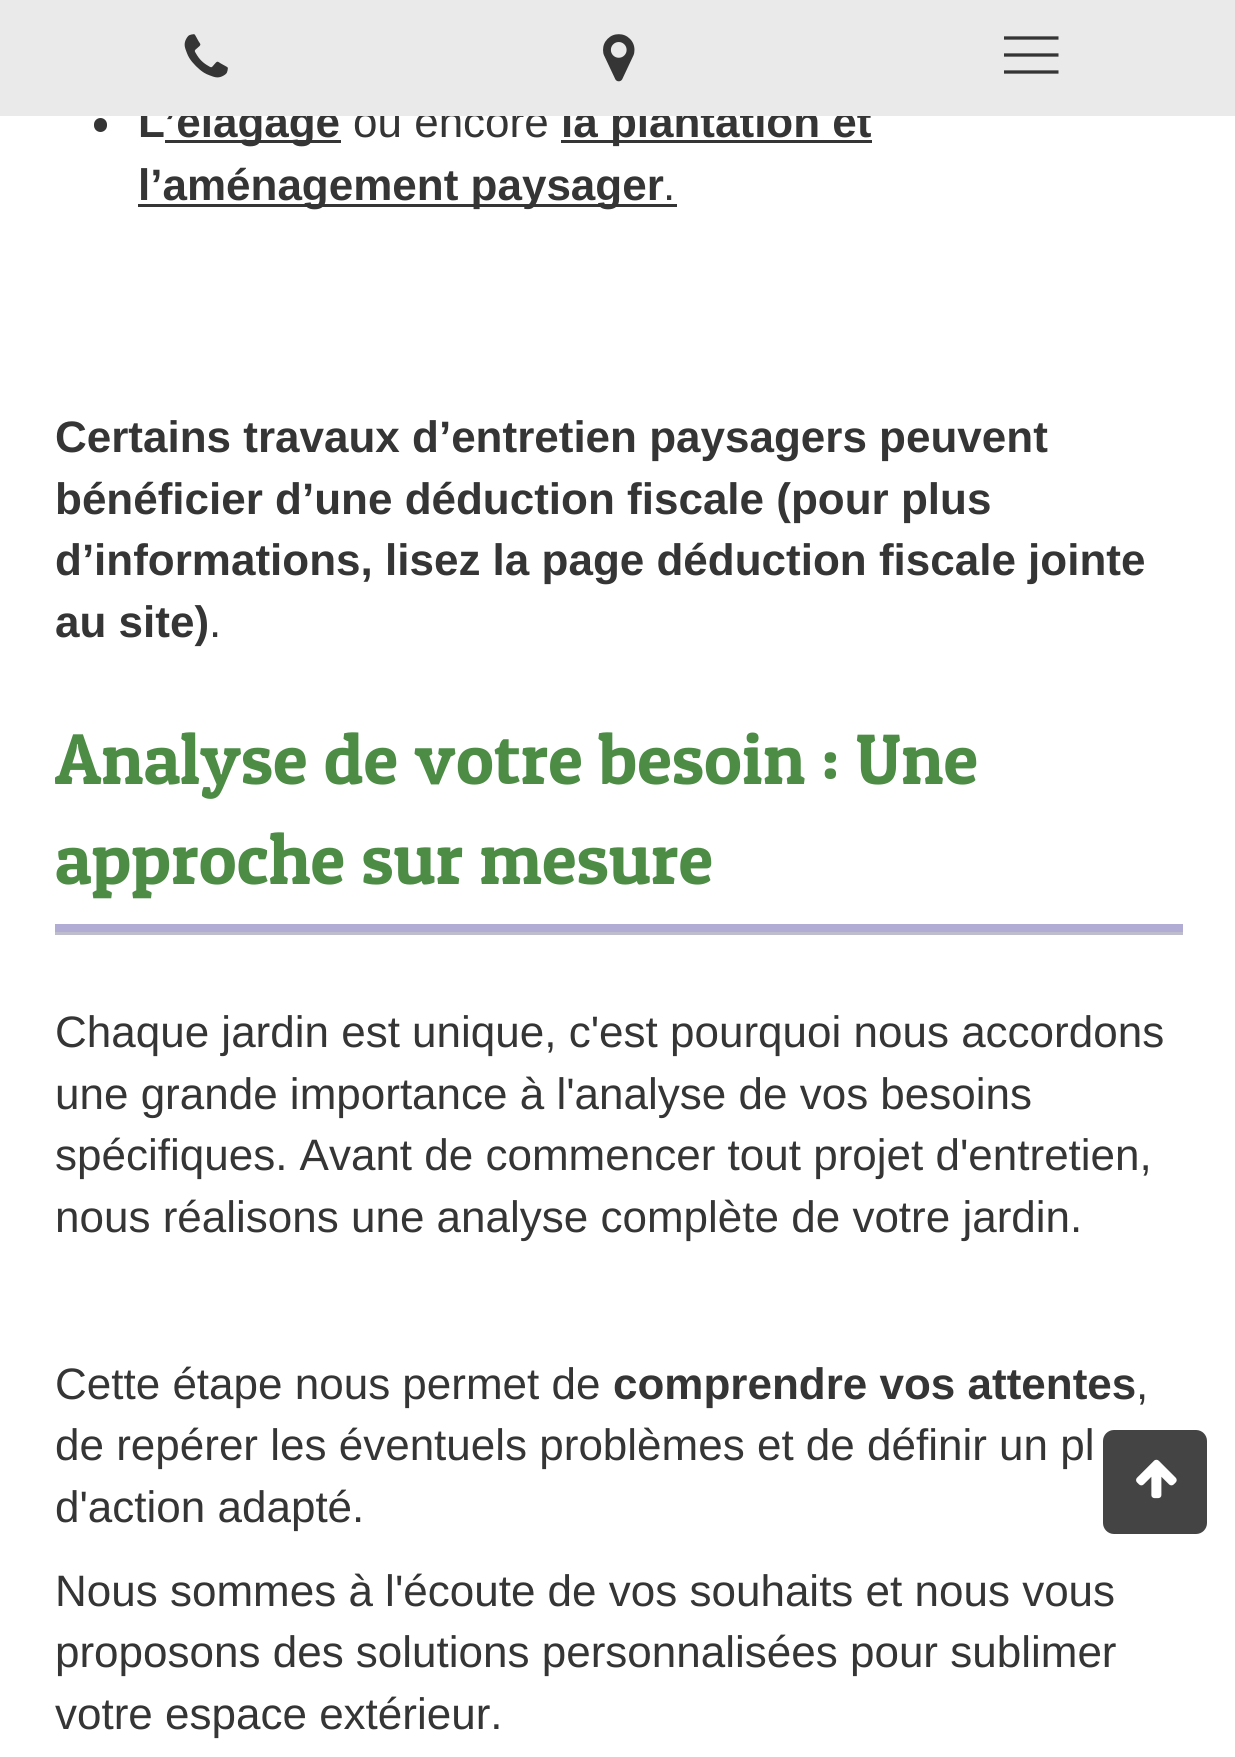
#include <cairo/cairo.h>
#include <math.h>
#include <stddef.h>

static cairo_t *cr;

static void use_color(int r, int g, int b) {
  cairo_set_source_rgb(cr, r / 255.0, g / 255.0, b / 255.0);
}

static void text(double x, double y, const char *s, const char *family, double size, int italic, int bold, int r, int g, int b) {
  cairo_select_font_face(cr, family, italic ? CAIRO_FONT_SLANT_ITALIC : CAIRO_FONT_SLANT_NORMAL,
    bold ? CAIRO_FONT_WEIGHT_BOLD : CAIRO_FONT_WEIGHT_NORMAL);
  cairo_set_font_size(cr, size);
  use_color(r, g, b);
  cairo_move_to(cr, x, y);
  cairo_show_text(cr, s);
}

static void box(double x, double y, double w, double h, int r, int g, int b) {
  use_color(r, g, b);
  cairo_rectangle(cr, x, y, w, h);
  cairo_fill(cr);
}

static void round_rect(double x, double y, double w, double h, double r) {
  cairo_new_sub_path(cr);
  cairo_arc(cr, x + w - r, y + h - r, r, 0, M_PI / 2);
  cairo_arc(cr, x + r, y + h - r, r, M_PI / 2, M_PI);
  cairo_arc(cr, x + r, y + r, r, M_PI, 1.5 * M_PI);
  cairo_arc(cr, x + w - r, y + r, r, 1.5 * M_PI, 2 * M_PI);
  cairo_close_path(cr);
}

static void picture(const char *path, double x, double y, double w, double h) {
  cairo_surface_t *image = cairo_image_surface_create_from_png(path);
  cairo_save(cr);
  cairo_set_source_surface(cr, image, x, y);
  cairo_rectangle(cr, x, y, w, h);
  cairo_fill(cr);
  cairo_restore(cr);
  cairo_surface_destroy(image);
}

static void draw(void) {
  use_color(255, 255, 255);
  cairo_paint(cr);
  use_color(53, 53, 53);
  round_rect(94, 118, 13, 14, 6.5);
  cairo_fill(cr);
  box(165, 140, 176, 3, 53, 53, 53);
  box(561, 140, 311, 3, 53, 53, 53);
  box(138, 204, 539, 3, 53, 53, 53);
  box(55, 924, 1128, 8, 176, 172, 212);
  box(55, 932, 1128, 3, 190, 189, 205);
  use_color(68, 68, 68);
  round_rect(1101.5, 1428.5, 107, 107, 12.5);
  cairo_fill_preserve(cr);
  use_color(255, 255, 255);
  cairo_set_line_width(cr, 3);
  cairo_stroke(cr);
  picture("img_03.png", 1136, 1459, 41, 40);
  text(138, 137, "L", "Liberation Sans", 44, 0, 1, 53, 53, 53);
  text(164, 137, "’élagage", "Liberation Sans", 44, 0, 1, 53, 53, 53);
  text(353, 137, "ou encore", "Liberation Sans", 44, 0, 0, 53, 53, 53);
  text(561, 137, "la plantation et", "Liberation Sans", 44, 0, 1, 53, 53, 53);
  box(0, 0, 1235, 116, 234, 234, 234);
  cairo_new_path(cr);
  cairo_move_to(cr, 1004, 55);
  cairo_line_to(cr, 1058.5, 55);
  cairo_move_to(cr, 1004, 38);
  cairo_line_to(cr, 1058.5, 38);
  cairo_move_to(cr, 1004, 72);
  cairo_line_to(cr, 1058.5, 72);
  use_color(53, 53, 53);
  cairo_set_line_width(cr, 3.3);
  cairo_stroke(cr);
  picture("img_02.png", 603, 34, 32, 48);
  picture("img_01.png", 184, 34, 44, 44);
  text(138, 200, "l’aménagement paysager", "Liberation Sans", 44, 0, 1, 53, 53, 53);
  text(663, 200, ".", "Liberation Sans", 44, 0, 0, 53, 53, 53);
  text(55, 452, "Certains travaux d’entretien paysagers peuvent", "Liberation Sans", 44, 0, 1, 53, 53, 53);
  text(55, 514, "bénéficier d’une déduction fiscale (pour plus", "Liberation Sans", 44, 0, 1, 53, 53, 53);
  text(55, 575, "d’informations, lisez la page déduction fiscale jointe", "Liberation Sans", 44, 0, 1, 53, 53, 53);
  text(55, 637, "au site)", "Liberation Sans", 44, 0, 1, 53, 53, 53);
  text(209, 637, ".", "Liberation Sans", 44, 0, 0, 53, 53, 53);
  cairo_save(cr);
  cairo_rectangle(cr, 55, 710, 1128, 239);
  cairo_clip(cr);
  text(55, 784, "Analyse de votre besoin : Une", "Patua One", 71.5, 0, 0, 76, 140, 69);
  cairo_restore(cr);
  text(55, 884, "approche sur mesure", "Patua One", 71.5, 0, 0, 76, 140, 69);
  text(55, 1047, "Chaque jardin est unique, c'est pourquoi nous accordons", "Liberation Sans", 44, 0, 0, 53, 53, 53);
  text(55, 1109, "une grande importance à l'analyse de vos besoins", "Liberation Sans", 44, 0, 0, 53, 53, 53);
  text(55, 1170, "spécifiques. Avant de commencer tout projet d'entretien,", "Liberation Sans", 44, 0, 0, 53, 53, 53);
  text(55, 1232, "nous réalisons une analyse complète de votre jardin.", "Liberation Sans", 44, 0, 0, 53, 53, 53);
  text(55, 1399, "Cette étape nous permet de", "Liberation Sans", 44, 0, 0, 53, 53, 53);
  text(613, 1399, "comprendre vos attentes", "Liberation Sans", 44, 0, 1, 53, 53, 53);
  text(1136, 1399, ",", "Liberation Sans", 44, 0, 0, 53, 53, 53);
  text(55, 1460, "de repérer les éventuels problèmes et de définir un pl", "Liberation Sans", 44, 0, 0, 53, 53, 53);
  text(55, 1522, "d'action adapté.", "Liberation Sans", 44, 0, 0, 53, 53, 53);
  text(55, 1606, "Nous sommes à l'écoute de vos souhaits et nous vous", "Liberation Sans", 44, 0, 0, 53, 53, 53);
  text(55, 1667, "proposons des solutions personnalisées pour sublimer", "Liberation Sans", 44, 0, 0, 53, 53, 53);
  text(55, 1729, "votre espace extérieur.", "Liberation Sans", 44, 0, 0, 53, 53, 53);
}

int main(void) {
  cairo_surface_t *surface = cairo_image_surface_create(CAIRO_FORMAT_RGB24, 1235, 1757);
  cr = cairo_create(surface);
  cairo_font_options_t *options = cairo_font_options_create();
  cairo_font_options_set_hint_metrics(options, CAIRO_HINT_METRICS_OFF);
  cairo_font_options_set_hint_style(options, CAIRO_HINT_STYLE_NONE);
  cairo_set_font_options(cr, options);
  cairo_set_miter_limit(cr, 4);
  draw();
  cairo_surface_write_to_png(surface, "out.png");
  cairo_font_options_destroy(options);
  cairo_destroy(cr);
  cairo_surface_destroy(surface);
  return 0;
}
